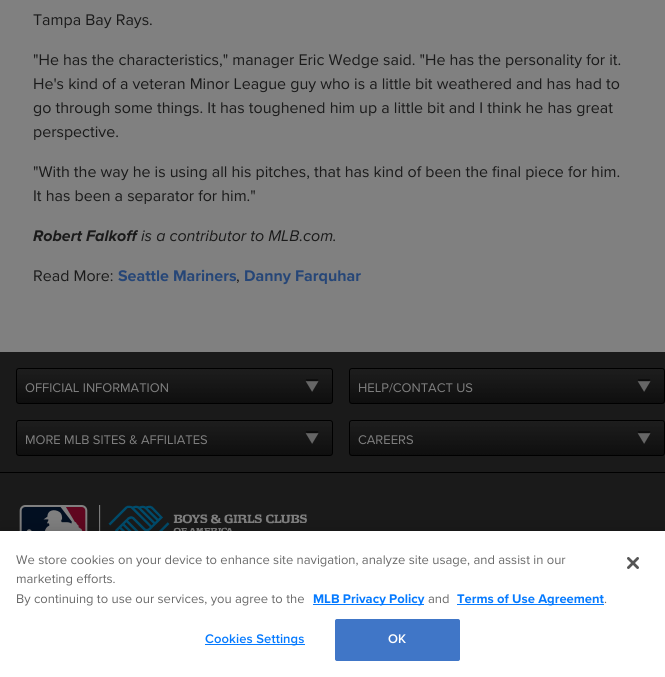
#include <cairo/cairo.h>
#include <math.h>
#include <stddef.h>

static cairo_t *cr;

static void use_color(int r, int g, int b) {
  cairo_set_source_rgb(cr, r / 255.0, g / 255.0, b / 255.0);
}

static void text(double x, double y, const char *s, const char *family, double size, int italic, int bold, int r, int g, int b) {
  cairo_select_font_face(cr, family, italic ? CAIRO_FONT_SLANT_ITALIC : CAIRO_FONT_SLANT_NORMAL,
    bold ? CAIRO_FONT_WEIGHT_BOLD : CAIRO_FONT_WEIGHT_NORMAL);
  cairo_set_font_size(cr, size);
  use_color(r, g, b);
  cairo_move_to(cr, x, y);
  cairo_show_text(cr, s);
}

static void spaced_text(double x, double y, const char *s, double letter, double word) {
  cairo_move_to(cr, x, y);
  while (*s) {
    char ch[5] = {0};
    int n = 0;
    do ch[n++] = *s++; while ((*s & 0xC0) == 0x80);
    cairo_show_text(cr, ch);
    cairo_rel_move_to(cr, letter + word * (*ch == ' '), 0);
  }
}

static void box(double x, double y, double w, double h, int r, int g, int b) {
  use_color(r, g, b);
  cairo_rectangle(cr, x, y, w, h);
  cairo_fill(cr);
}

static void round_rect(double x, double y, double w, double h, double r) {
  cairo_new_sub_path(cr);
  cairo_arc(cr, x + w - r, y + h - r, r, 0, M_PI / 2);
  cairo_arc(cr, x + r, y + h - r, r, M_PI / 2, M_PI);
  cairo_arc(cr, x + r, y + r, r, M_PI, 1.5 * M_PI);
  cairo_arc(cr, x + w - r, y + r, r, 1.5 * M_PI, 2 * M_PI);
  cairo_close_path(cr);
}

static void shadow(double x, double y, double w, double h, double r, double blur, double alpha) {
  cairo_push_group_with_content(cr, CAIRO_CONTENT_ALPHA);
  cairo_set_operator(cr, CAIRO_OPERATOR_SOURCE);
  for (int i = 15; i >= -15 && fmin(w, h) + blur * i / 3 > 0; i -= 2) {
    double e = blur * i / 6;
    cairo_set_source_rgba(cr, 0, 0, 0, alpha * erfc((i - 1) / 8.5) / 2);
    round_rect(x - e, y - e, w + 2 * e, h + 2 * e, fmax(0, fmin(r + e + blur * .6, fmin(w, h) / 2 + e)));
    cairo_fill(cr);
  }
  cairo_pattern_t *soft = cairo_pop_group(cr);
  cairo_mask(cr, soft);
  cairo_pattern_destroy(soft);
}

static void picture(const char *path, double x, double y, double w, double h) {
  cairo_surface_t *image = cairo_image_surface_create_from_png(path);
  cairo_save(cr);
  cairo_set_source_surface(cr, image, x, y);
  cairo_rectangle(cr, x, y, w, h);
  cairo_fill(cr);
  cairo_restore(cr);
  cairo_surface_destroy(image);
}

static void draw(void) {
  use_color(128, 128, 128);
  cairo_paint(cr);
  box(0, 352, 665, 179, 26, 26, 26);
  picture("img_01.png", 17, 369, 315, 34);
  round_rect(16.5, 368.5, 316, 35, 2.5);
  use_color(0, 0, 0);
  cairo_set_line_width(cr, 1);
  cairo_stroke(cr);
  picture("img_02.png", 350, 369, 314, 34);
  round_rect(349.5, 368.5, 315, 35, 2.5);
  cairo_stroke(cr);
  picture("img_01.png", 17, 421, 315, 34);
  round_rect(16.5, 420.5, 316, 35, 2.5);
  cairo_stroke(cr);
  picture("img_02.png", 350, 421, 314, 34);
  round_rect(349.5, 420.5, 315, 35, 2.5);
  cairo_stroke(cr);
  box(0, 472, 665, 1, 0, 0, 0);
  picture("img_03.png", 19, 505, 69, 26);
  picture("img_04.png", 99, 505, 208, 26);
  use_color(0, 0, 0);
  shadow(0, 531, 665, 146, 0, 9, 0.2);
  box(0, 531, 665, 146, 255, 255, 255);
  box(313, 604, 111, 1, 5, 122, 255);
  box(457, 604, 147, 1, 5, 122, 255);
  box(205, 644, 100, 1, 5, 122, 255);
  use_color(64, 118, 199);
  round_rect(335.5, 619.5, 124, 41, 1.5);
  cairo_fill_preserve(cr);
  cairo_stroke(cr);
  picture("img_05.png", 627, 557, 12, 12);
  text(33, 25, "Tampa Bay Rays.", "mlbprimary", 16, 0, 0, 26, 26, 26);
  text(33, 65, "\"He has the characteristics,\" manager Eric Wedge said. \"He has the personality for it.", "mlbprimary", 16, 0, 0, 26, 26, 26);
  text(33, 89, "He's kind of a veteran Minor League guy who is a little bit weathered and has had to", "mlbprimary", 16, 0, 0, 26, 26, 26);
  text(33, 113, "go through some things. It has toughened him up a little bit and I think he has great", "mlbprimary", 16, 0, 0, 26, 26, 26);
  text(33, 137, "perspective.", "mlbprimary", 16, 0, 0, 26, 26, 26);
  text(33, 177, "\"With the way he is using all his pitches, that has kind of been the final piece for him.", "mlbprimary", 16, 0, 0, 26, 26, 26);
  text(33, 201, "It has been a separator for him.\"", "mlbprimary", 16, 0, 0, 26, 26, 26);
  text(33, 241, "Robert Falkoff", "mlbprimary", 16, 1, 1, 26, 26, 26);
  text(141, 241, "is a contributor to MLB.com.", "mlbprimary", 16, 1, 0, 26, 26, 26);
  text(33, 281, "Read More:", "mlbprimary", 16, 0, 0, 26, 26, 26);
  text(118, 281, "Seattle Mariners", "mlbprimary", 16, 0, 1, 38, 70, 119);
  text(236, 281, ",", "mlbprimary", 16, 0, 0, 26, 26, 26);
  text(244, 281, "Danny Farquhar", "mlbprimary", 16, 0, 1, 38, 70, 119);
  text(25, 392, "OFFICIAL INFORMATION", "Proxima Nova", 13, 0, 0, 128, 128, 128);
  text(358, 392, "HELP/CONTACT US", "Proxima Nova", 13, 0, 0, 128, 128, 128);
  text(25, 444, "MORE MLB SITES & AFFILIATES", "Proxima Nova", 13, 0, 0, 128, 128, 128);
  text(358, 444, "CAREERS", "Proxima Nova", 13, 0, 0, 128, 128, 128);
  text(16, 564, "We store cookies on your device to enhance site navigation, analyze site usage, and assist in our", "mlbprimary", 13, 0, 0, 105, 105, 105);
  text(16, 583, "marketing efforts.", "mlbprimary", 13, 0, 0, 105, 105, 105);
  text(16, 603, "By continuing to use our services, you agree to the", "mlbprimary", 13, 0, 0, 105, 105, 105);
  text(313, 603, "MLB Privacy Policy", "mlbprimary", 13, 0, 1, 5, 122, 255);
  text(428, 603, "and", "mlbprimary", 13, 0, 0, 105, 105, 105);
  text(457, 603, "Terms of Use Agreement", "mlbprimary", 13, 0, 1, 5, 122, 255);
  text(604, 603, ".", "mlbprimary", 13, 0, 0, 105, 105, 105);
  cairo_select_font_face(cr, "Proxima Nova SemiBold", CAIRO_FONT_SLANT_NORMAL, CAIRO_FONT_WEIGHT_NORMAL);
  use_color(5, 122, 255);
  spaced_text(205, 643, "Cookies Settings", 0.1, 0);
  use_color(255, 255, 255);
  spaced_text(388, 643, "OK", 0.1, 0);
}

int main(void) {
  cairo_surface_t *surface = cairo_image_surface_create(CAIRO_FORMAT_RGB24, 665, 677);
  cr = cairo_create(surface);
  cairo_font_options_t *options = cairo_font_options_create();
  cairo_font_options_set_hint_metrics(options, CAIRO_HINT_METRICS_OFF);
  cairo_font_options_set_hint_style(options, CAIRO_HINT_STYLE_NONE);
  cairo_set_font_options(cr, options);
  cairo_set_miter_limit(cr, 4);
  draw();
  cairo_surface_write_to_png(surface, "out.png");
  cairo_font_options_destroy(options);
  cairo_destroy(cr);
  cairo_surface_destroy(surface);
  return 0;
}
